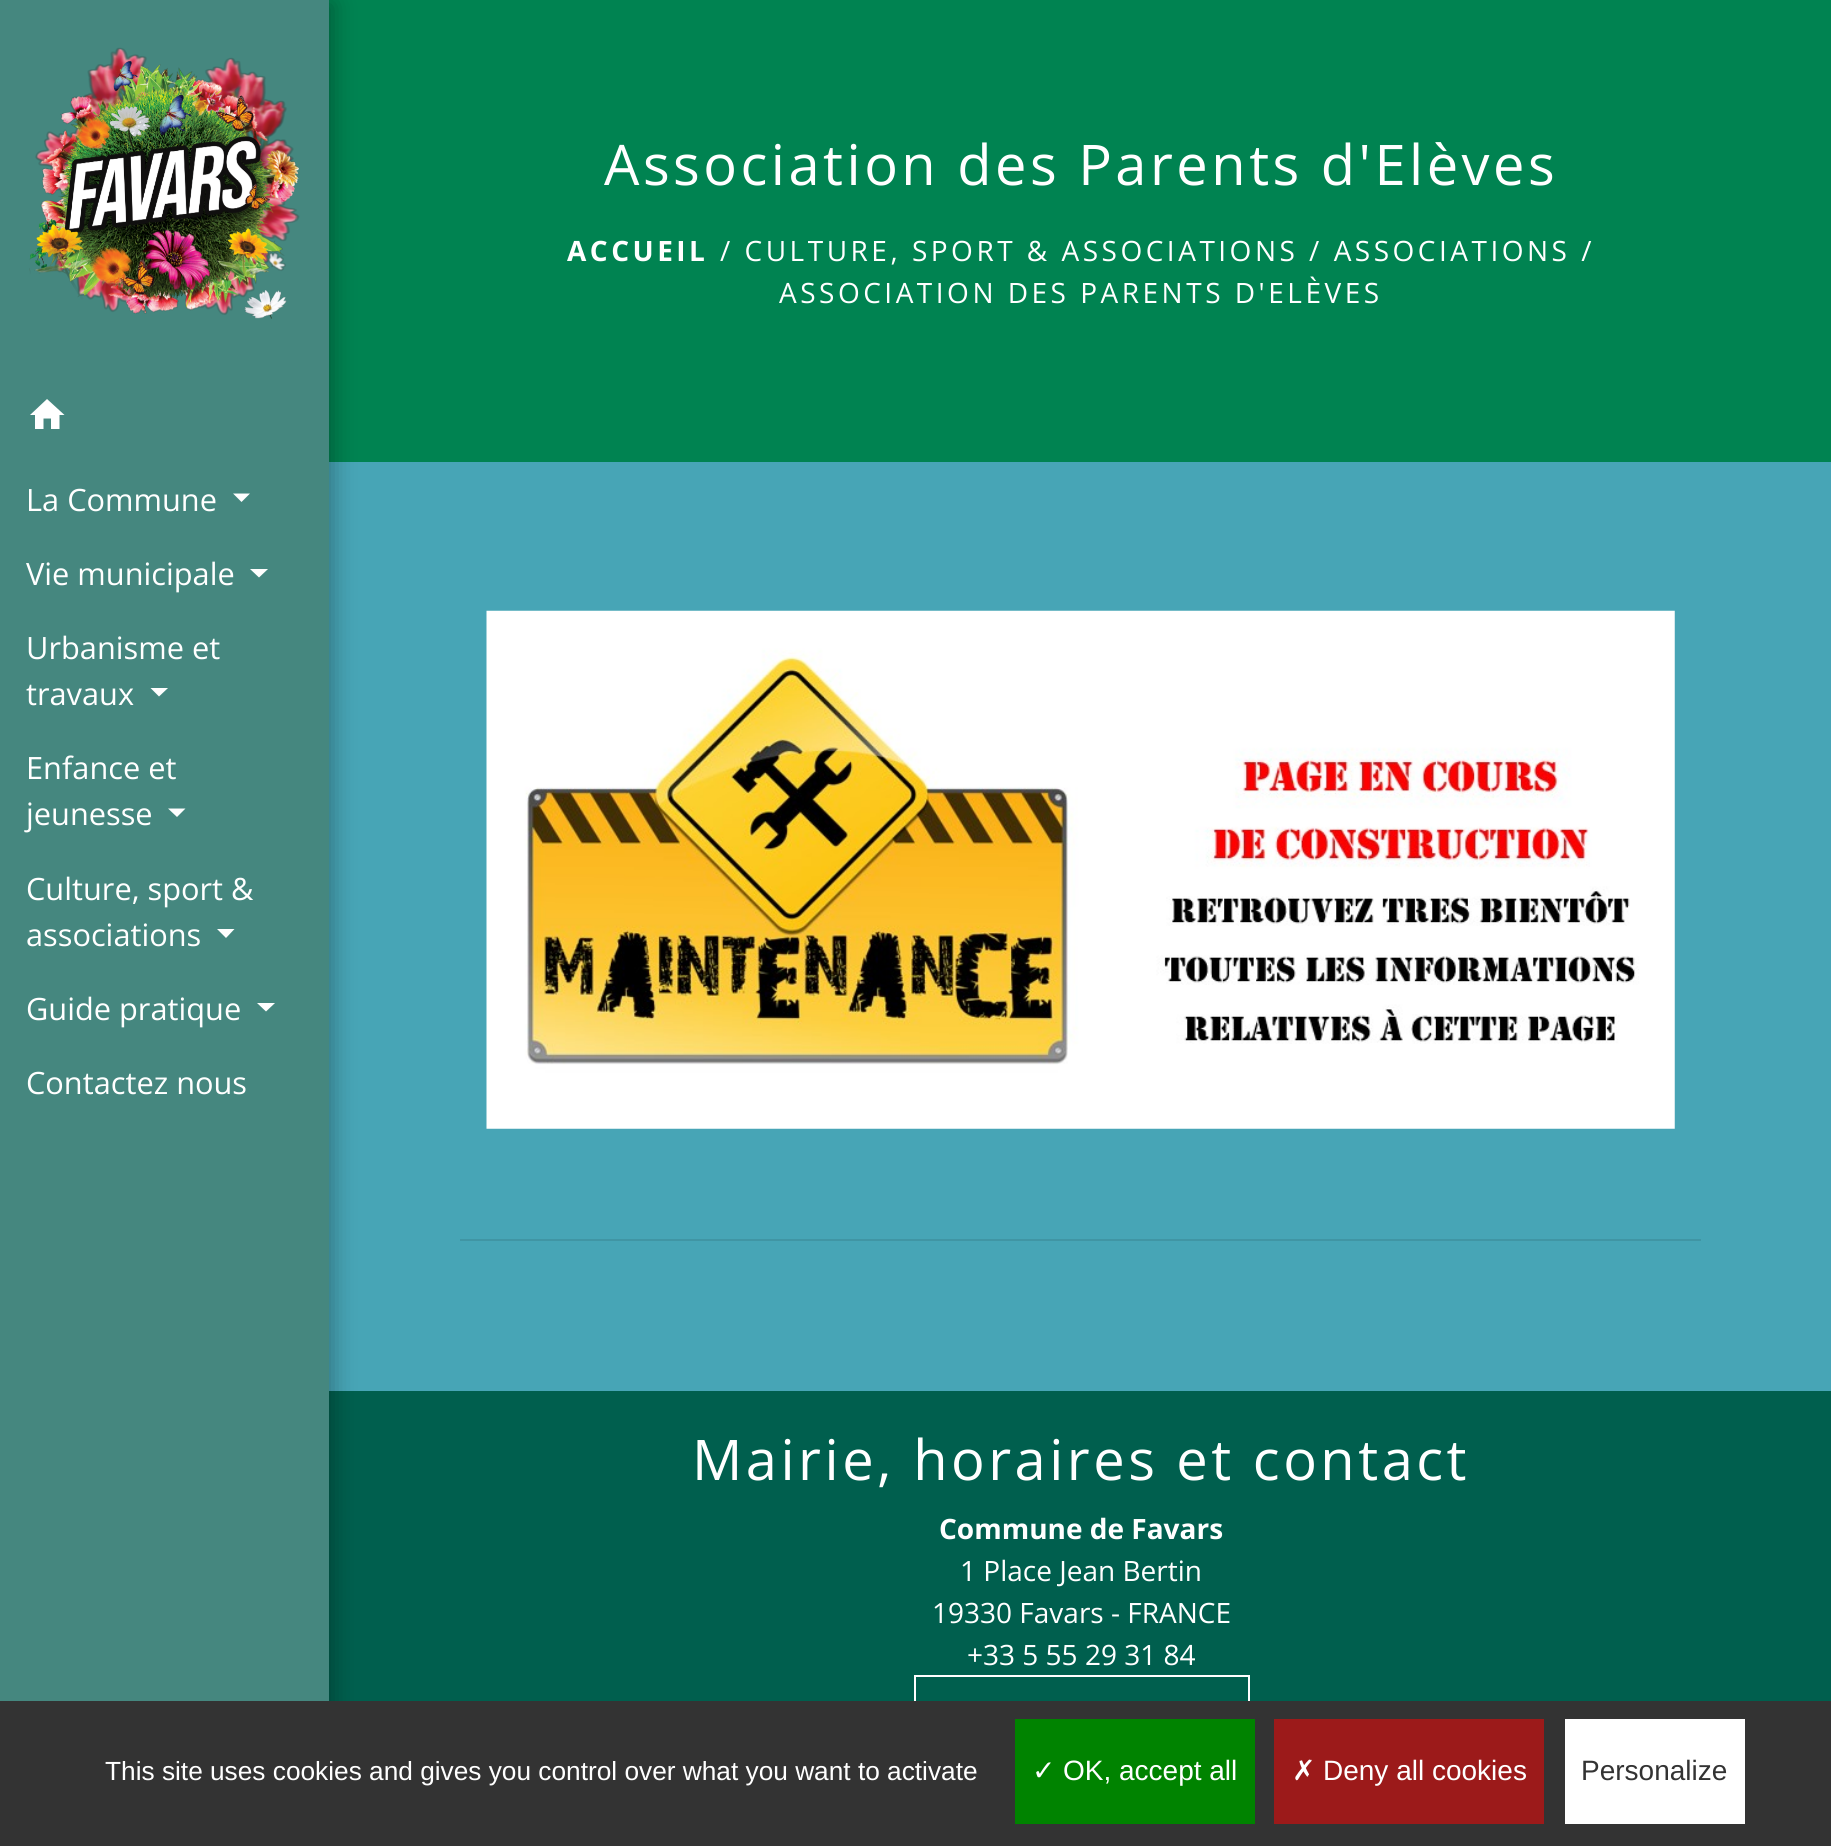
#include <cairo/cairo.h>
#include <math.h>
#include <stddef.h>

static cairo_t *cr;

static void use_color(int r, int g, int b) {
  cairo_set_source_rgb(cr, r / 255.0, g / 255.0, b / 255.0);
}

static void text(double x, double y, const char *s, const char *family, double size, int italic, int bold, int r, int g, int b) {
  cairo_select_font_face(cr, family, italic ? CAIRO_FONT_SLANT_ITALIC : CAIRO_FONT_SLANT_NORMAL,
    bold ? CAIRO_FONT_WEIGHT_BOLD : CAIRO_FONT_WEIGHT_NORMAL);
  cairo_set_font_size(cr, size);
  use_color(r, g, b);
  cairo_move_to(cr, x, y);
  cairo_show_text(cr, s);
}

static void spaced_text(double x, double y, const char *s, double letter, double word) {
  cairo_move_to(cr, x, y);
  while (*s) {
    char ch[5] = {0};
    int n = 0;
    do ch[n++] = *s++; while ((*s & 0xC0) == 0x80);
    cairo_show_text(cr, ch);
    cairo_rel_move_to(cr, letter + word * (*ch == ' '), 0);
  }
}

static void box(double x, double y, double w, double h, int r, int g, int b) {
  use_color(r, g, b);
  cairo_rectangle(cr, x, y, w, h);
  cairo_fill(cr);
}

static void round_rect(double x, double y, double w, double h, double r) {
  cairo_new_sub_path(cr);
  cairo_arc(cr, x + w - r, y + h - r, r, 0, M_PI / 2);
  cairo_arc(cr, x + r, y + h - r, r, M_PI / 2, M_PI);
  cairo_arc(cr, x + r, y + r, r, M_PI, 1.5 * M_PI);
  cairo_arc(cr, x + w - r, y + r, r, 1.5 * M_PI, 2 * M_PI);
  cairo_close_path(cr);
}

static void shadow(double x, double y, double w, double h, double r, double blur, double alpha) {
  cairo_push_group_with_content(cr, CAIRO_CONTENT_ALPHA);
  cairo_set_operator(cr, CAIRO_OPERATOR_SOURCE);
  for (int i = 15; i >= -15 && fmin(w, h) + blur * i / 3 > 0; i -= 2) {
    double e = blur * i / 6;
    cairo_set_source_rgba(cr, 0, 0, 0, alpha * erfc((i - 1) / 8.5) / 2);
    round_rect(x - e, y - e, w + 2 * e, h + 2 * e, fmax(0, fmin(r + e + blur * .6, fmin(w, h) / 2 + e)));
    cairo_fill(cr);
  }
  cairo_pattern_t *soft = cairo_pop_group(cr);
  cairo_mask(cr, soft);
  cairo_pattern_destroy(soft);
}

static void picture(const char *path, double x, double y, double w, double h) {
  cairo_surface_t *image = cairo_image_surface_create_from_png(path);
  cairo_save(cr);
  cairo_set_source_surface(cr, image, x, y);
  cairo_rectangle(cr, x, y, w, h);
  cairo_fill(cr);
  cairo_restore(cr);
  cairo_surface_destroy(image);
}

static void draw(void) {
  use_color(71, 165, 182);
  cairo_paint(cr);
  box(329, 0, 1502, 462, 0, 131, 81);
  picture("img_01.png", 486, 610, 1189, 519);
  box(460, 1239, 1241, 2, 64, 149, 164);
  box(329, 1391, 1502, 310, 0, 95, 78);
  use_color(0, 0, 0);
  shadow(4, 4, 329, 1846, 0, 11.5, 0.3);
  box(0, 0, 329, 1701, 69, 135, 127);
  picture("img_02.png", 29, 47, 271, 272);
  use_color(255, 255, 255);
  cairo_new_path(cr);
  cairo_move_to(cr, 43.5, 429);
  cairo_line_to(cr, 35, 429);
  cairo_line_to(cr, 35, 415);
  cairo_line_to(cr, 30, 415);
  cairo_line_to(cr, 47, 399);
  cairo_line_to(cr, 64.5, 415);
  cairo_line_to(cr, 59.5, 415);
  cairo_line_to(cr, 59.5, 429);
  cairo_line_to(cr, 51, 429);
  cairo_line_to(cr, 51, 418.5);
  cairo_line_to(cr, 43.5, 418.5);
  cairo_close_path(cr);
  cairo_fill(cr);
  cairo_new_path(cr);
  cairo_move_to(cr, 233, 493.5);
  cairo_line_to(cr, 250, 493.5);
  cairo_line_to(cr, 241.5, 502);
  cairo_close_path(cr);
  cairo_fill(cr);
  cairo_new_path(cr);
  cairo_move_to(cr, 250, 569);
  cairo_line_to(cr, 268, 569);
  cairo_line_to(cr, 259, 577.5);
  cairo_close_path(cr);
  cairo_fill(cr);
  cairo_new_path(cr);
  cairo_move_to(cr, 150.5, 688);
  cairo_line_to(cr, 168, 688);
  cairo_line_to(cr, 159, 696.5);
  cairo_close_path(cr);
  cairo_fill(cr);
  cairo_new_path(cr);
  cairo_move_to(cr, 168, 808.5);
  cairo_line_to(cr, 185.5, 808.5);
  cairo_line_to(cr, 177, 817);
  cairo_close_path(cr);
  cairo_fill(cr);
  cairo_new_path(cr);
  cairo_move_to(cr, 217, 929);
  cairo_line_to(cr, 234.5, 929);
  cairo_line_to(cr, 226, 938);
  cairo_close_path(cr);
  cairo_fill(cr);
  cairo_new_path(cr);
  cairo_move_to(cr, 257, 1003);
  cairo_line_to(cr, 275, 1003);
  cairo_line_to(cr, 266, 1011.5);
  cairo_close_path(cr);
  cairo_fill(cr);
  cairo_rectangle(cr, 915, 1676, 334, 68);
  cairo_stroke(cr);
  box(0, 1701, 1831, 145, 51, 51, 51);
  box(1015, 1719, 240, 105, 0, 131, 0);
  box(1274, 1719, 270, 105, 156, 26, 26);
  box(1565, 1719, 180, 105, 255, 255, 255);
  cairo_select_font_face(cr, "Open Sans", CAIRO_FONT_SLANT_NORMAL, CAIRO_FONT_WEIGHT_NORMAL);
  cairo_set_font_size(cr, 56);
  spaced_text(604, 185, "Association des Parents d'Elèves", 3.5, 0);
  cairo_select_font_face(cr, "Open Sans", CAIRO_FONT_SLANT_NORMAL, CAIRO_FONT_WEIGHT_BOLD);
  cairo_set_font_size(cr, 28);
  spaced_text(567, 261, "ACCUEIL", 3.5, 0);
  cairo_select_font_face(cr, "Open Sans", CAIRO_FONT_SLANT_NORMAL, CAIRO_FONT_WEIGHT_NORMAL);
  spaced_text(720, 261, "/ CULTURE, SPORT & ASSOCIATIONS / ASSOCIATIONS /", 3.5, 0);
  spaced_text(779, 303, "ASSOCIATION DES PARENTS D'ELÈVES", 3.5, 0);
  text(26, 511, "La Commune", "Open Sans", 30.75, 0, 0, 255, 255, 255);
  text(26, 585, "Vie municipale", "Open Sans", 30.75, 0, 0, 255, 255, 255);
  text(26, 659, "Urbanisme et", "Open Sans", 30.75, 0, 0, 255, 255, 255);
  text(26, 705, "travaux", "Open Sans", 30.75, 0, 0, 255, 255, 255);
  text(26, 779, "Enfance et", "Open Sans", 30.75, 0, 0, 255, 255, 255);
  text(26, 825, "jeunesse", "Open Sans", 30.75, 0, 0, 255, 255, 255);
  text(26, 900, "Culture, sport &", "Open Sans", 30.75, 0, 0, 255, 255, 255);
  text(26, 946, "associations", "Open Sans", 30.75, 0, 0, 255, 255, 255);
  text(26, 1020, "Guide pratique", "Open Sans", 30.75, 0, 0, 255, 255, 255);
  text(26, 1094, "Contactez nous", "Open Sans", 30.75, 0, 0, 255, 255, 255);
  cairo_set_font_size(cr, 56);
  spaced_text(692, 1480, "Mairie, horaires et contact", 3.5, 0);
  text(939, 1539, "Commune de Favars", "Open Sans", 28, 0, 1, 255, 255, 255);
  text(960, 1581, "1 Place Jean Bertin", "Open Sans", 28, 0, 0, 255, 255, 255);
  text(932, 1623, "19330 Favars - FRANCE", "Open Sans", 28, 0, 0, 255, 255, 255);
  text(967, 1665, "+33 5 55 29 31 84", "Open Sans", 28, 0, 0, 255, 255, 255);
  text(105, 1780, "This site uses cookies and gives you control over what you want to activate", "Liberation Sans", 26.25, 0, 0, 255, 255, 255);
  text(1032, 1780, "✓", "DejaVu Sans", 28, 0, 0, 255, 255, 255);
  text(1063, 1780, "OK, accept all", "Liberation Sans", 28, 0, 0, 255, 255, 255);
  text(1292, 1780, "✗", "DejaVu Sans", 28, 0, 0, 255, 255, 255);
  text(1323, 1780, "Deny all cookies", "Liberation Sans", 28, 0, 0, 255, 255, 255);
  text(1581, 1780, "Personalize", "Liberation Sans", 28, 0, 0, 51, 51, 51);
}

int main(void) {
  cairo_surface_t *surface = cairo_image_surface_create(CAIRO_FORMAT_RGB24, 1831, 1846);
  cr = cairo_create(surface);
  cairo_font_options_t *options = cairo_font_options_create();
  cairo_font_options_set_hint_metrics(options, CAIRO_HINT_METRICS_OFF);
  cairo_font_options_set_hint_style(options, CAIRO_HINT_STYLE_NONE);
  cairo_set_font_options(cr, options);
  cairo_set_miter_limit(cr, 4);
  draw();
  cairo_surface_write_to_png(surface, "out.png");
  cairo_font_options_destroy(options);
  cairo_destroy(cr);
  cairo_surface_destroy(surface);
  return 0;
}
